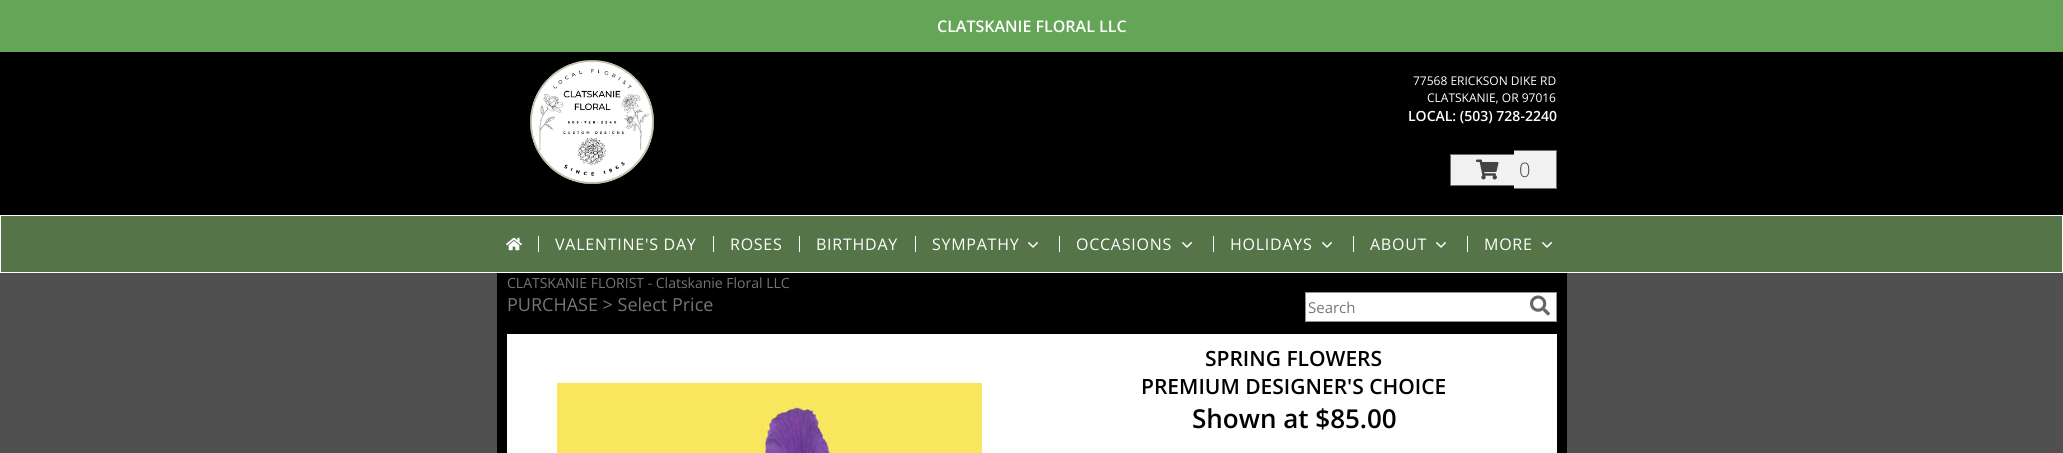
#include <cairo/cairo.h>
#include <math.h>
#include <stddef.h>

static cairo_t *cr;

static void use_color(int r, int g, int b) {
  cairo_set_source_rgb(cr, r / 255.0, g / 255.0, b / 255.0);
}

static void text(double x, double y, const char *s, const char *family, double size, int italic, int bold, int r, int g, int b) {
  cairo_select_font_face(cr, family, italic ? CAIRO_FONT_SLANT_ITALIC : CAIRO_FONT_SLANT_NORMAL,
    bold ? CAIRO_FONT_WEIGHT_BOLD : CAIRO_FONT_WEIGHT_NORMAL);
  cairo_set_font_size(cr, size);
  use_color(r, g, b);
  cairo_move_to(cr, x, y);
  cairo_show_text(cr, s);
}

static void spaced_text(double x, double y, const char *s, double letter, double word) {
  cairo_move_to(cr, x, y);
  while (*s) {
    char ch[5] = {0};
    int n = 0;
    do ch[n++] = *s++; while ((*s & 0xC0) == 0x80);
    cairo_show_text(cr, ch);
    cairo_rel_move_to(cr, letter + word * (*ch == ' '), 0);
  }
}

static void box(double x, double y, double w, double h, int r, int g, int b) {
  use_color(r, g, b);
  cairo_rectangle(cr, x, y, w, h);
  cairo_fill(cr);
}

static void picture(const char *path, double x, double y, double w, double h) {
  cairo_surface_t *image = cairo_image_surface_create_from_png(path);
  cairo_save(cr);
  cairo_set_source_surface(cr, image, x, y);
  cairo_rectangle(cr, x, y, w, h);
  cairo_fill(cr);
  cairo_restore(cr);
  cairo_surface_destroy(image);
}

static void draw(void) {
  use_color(80, 80, 80);
  cairo_paint(cr);
  box(497, 273, 1070, 180, 0, 0, 0);
  box(0, 0, 2063, 52, 101, 165, 87);
  box(0, 52, 2063, 163, 0, 0, 0);
  picture("img_01.png", 530, 60, 124, 124);
  box(1451, 155, 63, 30, 241, 241, 241);
  box(1450, 154, 64, 1, 110, 110, 110);
  box(1450, 185, 64, 1, 110, 110, 110);
  box(1450, 154, 1, 32, 110, 110, 110);
  box(1514, 150, 5, 39, 241, 241, 241);
  box(1514, 150, 43, 1, 110, 110, 110);
  box(1514, 188, 5, 1, 110, 110, 110);
  box(1519, 151, 37, 37, 241, 241, 241);
  box(1556, 150, 1, 39, 110, 110, 110);
  box(1519, 188, 38, 1, 110, 110, 110);
  picture("img_02.png", 1476, 159, 23, 21);
  cairo_rectangle(cr, 0.5, 215.5, 2062, 57);
  use_color(255, 255, 255);
  cairo_set_line_width(cr, 1);
  cairo_stroke(cr);
  box(1, 216, 2061, 56, 85, 116, 72);
  picture("img_03.png", 506, 237, 16, 14);
  box(538, 236, 1, 16, 255, 255, 255);
  box(713, 236, 1, 16, 255, 255, 255);
  box(799, 236, 1, 16, 255, 255, 255);
  box(915, 236, 1, 16, 255, 255, 255);
  picture("img_04.png", 1028, 242, 10, 6);
  box(1059, 236, 1, 16, 255, 255, 255);
  picture("img_04.png", 1182, 242, 10, 6);
  box(1213, 236, 1, 16, 255, 255, 255);
  picture("img_04.png", 1322, 242, 10, 6);
  box(1353, 236, 1, 16, 255, 255, 255);
  picture("img_04.png", 1436, 242, 10, 6);
  box(1467, 236, 1, 16, 255, 255, 255);
  picture("img_04.png", 1542, 242, 10, 6);
  cairo_rectangle(cr, 1305.5, 292.5, 251, 29);
  cairo_fill_preserve(cr);
  use_color(145, 145, 145);
  cairo_stroke(cr);
  picture("img_05.png", 1530, 295, 20, 21);
  box(507, 334, 1050, 119, 255, 255, 255);
  picture("img_06.png", 557, 382, 425, 71);
  text(937, 32, "CLATSKANIE FLORAL LLC", "Open Sans SemiBold", 16, 0, 0, 255, 255, 255);
  text(1413, 85, "77568 ERICKSON DIKE RD", "Open Sans", 12, 0, 0, 255, 255, 255);
  text(1427, 102, "CLATSKANIE, OR 97016", "Open Sans", 12, 0, 0, 255, 255, 255);
  text(1408, 121, "LOCAL: (503) 728-2240", "Open Sans SemiBold", 14, 0, 0, 255, 255, 255);
  text(1519, 177, "0", "Open Sans Light", 20, 0, 0, 68, 68, 68);
  cairo_select_font_face(cr, "Open Sans", CAIRO_FONT_SLANT_NORMAL, CAIRO_FONT_WEIGHT_NORMAL);
  cairo_set_font_size(cr, 16);
  use_color(255, 255, 255);
  spaced_text(555, 250, "VALENTINE'S DAY", 0.75, 0);
  spaced_text(730, 250, "ROSES", 0.75, 0);
  spaced_text(816, 250, "BIRTHDAY", 0.75, 0);
  spaced_text(932, 250, "SYMPATHY", 0.75, 0);
  spaced_text(1076, 250, "OCCASIONS", 0.75, 0);
  spaced_text(1230, 250, "HOLIDAYS", 0.75, 0);
  spaced_text(1370, 250, "ABOUT", 0.75, 0);
  spaced_text(1484, 250, "MORE", 0.75, 0);
  text(507, 288, "CLATSKANIE FLORIST - Clatskanie Floral LLC", "Open Sans", 14, 0, 0, 117, 117, 117);
  text(507, 311, "PURCHASE > Select Price", "Open Sans", 18, 0, 0, 117, 117, 117);
  text(1308, 313, "Search", "Open Sans", 15, 0, 0, 117, 117, 117);
  text(1205, 366, "SPRING FLOWERS", "Open Sans SemiBold", 21, 0, 0, 0, 0, 0);
  text(1141, 394, "PREMIUM DESIGNER'S CHOICE", "Open Sans SemiBold", 21, 0, 0, 0, 0, 0);
  text(1192, 428, "Shown at $85.00", "Open Sans SemiBold", 26, 0, 0, 0, 0, 0);
}

int main(void) {
  cairo_surface_t *surface = cairo_image_surface_create(CAIRO_FORMAT_RGB24, 2063, 453);
  cr = cairo_create(surface);
  cairo_font_options_t *options = cairo_font_options_create();
  cairo_font_options_set_hint_metrics(options, CAIRO_HINT_METRICS_OFF);
  cairo_font_options_set_hint_style(options, CAIRO_HINT_STYLE_NONE);
  cairo_set_font_options(cr, options);
  cairo_set_miter_limit(cr, 4);
  draw();
  cairo_surface_write_to_png(surface, "out.png");
  cairo_font_options_destroy(options);
  cairo_destroy(cr);
  cairo_surface_destroy(surface);
  return 0;
}
